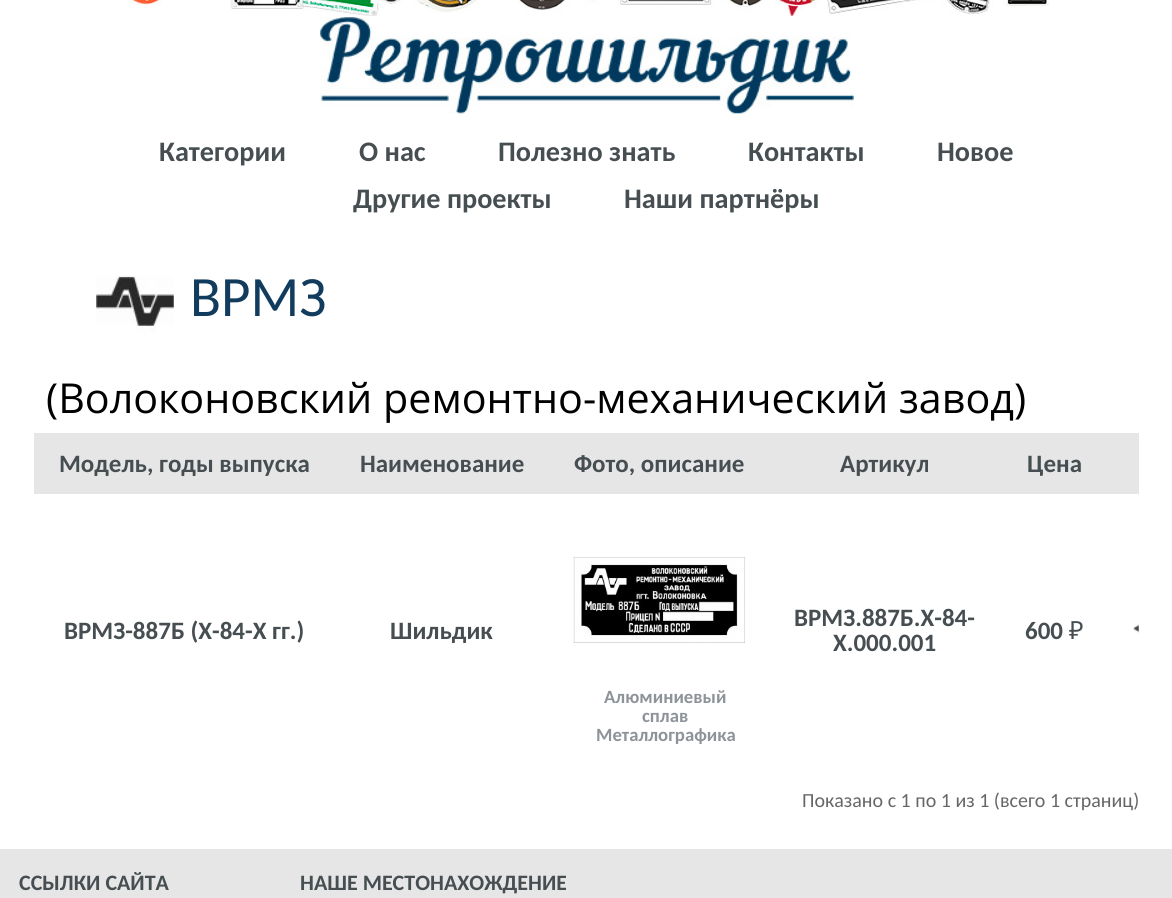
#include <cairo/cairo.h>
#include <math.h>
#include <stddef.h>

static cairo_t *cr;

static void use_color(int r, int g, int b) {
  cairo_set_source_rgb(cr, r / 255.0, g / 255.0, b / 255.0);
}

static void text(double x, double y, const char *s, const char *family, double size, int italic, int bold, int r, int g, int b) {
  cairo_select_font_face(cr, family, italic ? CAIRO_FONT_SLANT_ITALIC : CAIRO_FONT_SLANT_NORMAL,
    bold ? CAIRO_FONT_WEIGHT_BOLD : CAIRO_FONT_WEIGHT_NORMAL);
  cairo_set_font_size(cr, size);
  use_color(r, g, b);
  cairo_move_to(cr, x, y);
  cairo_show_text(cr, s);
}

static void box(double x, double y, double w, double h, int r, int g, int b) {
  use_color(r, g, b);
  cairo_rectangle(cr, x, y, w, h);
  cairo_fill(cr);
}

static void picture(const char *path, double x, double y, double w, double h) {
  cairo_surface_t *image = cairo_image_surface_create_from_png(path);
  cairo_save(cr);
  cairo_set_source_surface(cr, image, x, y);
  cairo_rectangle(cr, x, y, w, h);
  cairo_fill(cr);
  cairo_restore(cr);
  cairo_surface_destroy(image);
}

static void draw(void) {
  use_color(255, 255, 255);
  cairo_paint(cr);
  picture("img_01.png", 129, 0, 920, 16);
  picture("img_02.png", 320, 17, 534, 97);
  picture("img_03.png", 96, 275, 78, 58);
  box(34, 433, 1105, 61, 230, 230, 230);
  picture("img_04.png", 1133, 624, 6, 9);
  picture("img_05.png", 573, 557, 172, 86);
  box(0, 849, 1172, 49, 230, 230, 230);
  text(159, 161, "Категории", "Carlito", 28.25, 0, 1, 70, 78, 81);
  text(359, 161, "О нас", "Carlito", 28.25, 0, 1, 70, 78, 81);
  text(498, 161, "Полезно знать", "Carlito", 28.25, 0, 1, 70, 78, 81);
  text(748, 161, "Контакты", "Carlito", 28.25, 0, 1, 70, 78, 81);
  text(937, 161, "Новое", "Carlito", 28.25, 0, 1, 70, 78, 81);
  text(353, 208, "Другие проекты", "Carlito", 28.25, 0, 1, 70, 78, 81);
  text(624, 208, "Наши партнёры", "Carlito", 28.25, 0, 1, 70, 78, 81);
  text(190, 316, "ВРМЗ", "Carlito", 57, 0, 0, 18, 60, 93);
  text(46, 413, "(Волоконовский ремонтно-механический завод)", "Open Sans", 41.25, 0, 0, 0, 0, 0);
  text(59, 472, "Модель, годы выпуска", "Carlito", 25, 0, 1, 70, 78, 81);
  text(360, 472, "Наименование", "Carlito", 25, 0, 1, 70, 78, 81);
  text(574, 472, "Фото, описание", "Carlito", 25, 0, 1, 70, 78, 81);
  text(840, 472, "Артикул", "Carlito", 25, 0, 1, 70, 78, 81);
  text(1027, 472, "Цена", "Carlito", 25, 0, 1, 70, 78, 81);
  text(64, 639, "ВРМЗ-887Б (Х-84-Х гг.)", "Carlito", 25, 0, 1, 70, 78, 81);
  text(390, 639, "Шильдик", "Carlito", 25, 0, 1, 70, 78, 81);
  text(794, 626, "ВРМЗ.887Б.Х-84-", "Carlito", 25, 0, 1, 70, 78, 81);
  text(833, 651, "Х.000.001", "Carlito", 25, 0, 1, 70, 78, 81);
  text(1025, 639, "600", "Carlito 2", 25, 0, 1, 70, 78, 81);
  text(1069, 639, "₽", "Noto Sans", 25, 0, 0, 70, 78, 81);
  text(604, 703, "Алюминиевый", "Carlito", 18.75, 0, 1, 142, 147, 153);
  text(642, 722, "сплав", "Carlito", 18.75, 0, 1, 142, 147, 153);
  text(596, 741, "Металлографика", "Carlito", 18.75, 0, 1, 142, 147, 153);
  text(802, 807, "Показано с 1 по 1 из 1 (всего 1 страниц)", "Carlito", 20, 0, 0, 102, 102, 102);
  text(19, 890, "ССЫЛКИ САЙТА", "Carlito", 22, 0, 1, 70, 78, 81);
  text(300, 890, "НАШЕ МЕСТОНАХОЖДЕНИЕ", "Carlito", 22, 0, 1, 70, 78, 81);
}

int main(void) {
  cairo_surface_t *surface = cairo_image_surface_create(CAIRO_FORMAT_RGB24, 1172, 898);
  cr = cairo_create(surface);
  cairo_font_options_t *options = cairo_font_options_create();
  cairo_font_options_set_hint_metrics(options, CAIRO_HINT_METRICS_OFF);
  cairo_font_options_set_hint_style(options, CAIRO_HINT_STYLE_NONE);
  cairo_set_font_options(cr, options);
  cairo_set_miter_limit(cr, 4);
  draw();
  cairo_surface_write_to_png(surface, "out.png");
  cairo_font_options_destroy(options);
  cairo_destroy(cr);
  cairo_surface_destroy(surface);
  return 0;
}
